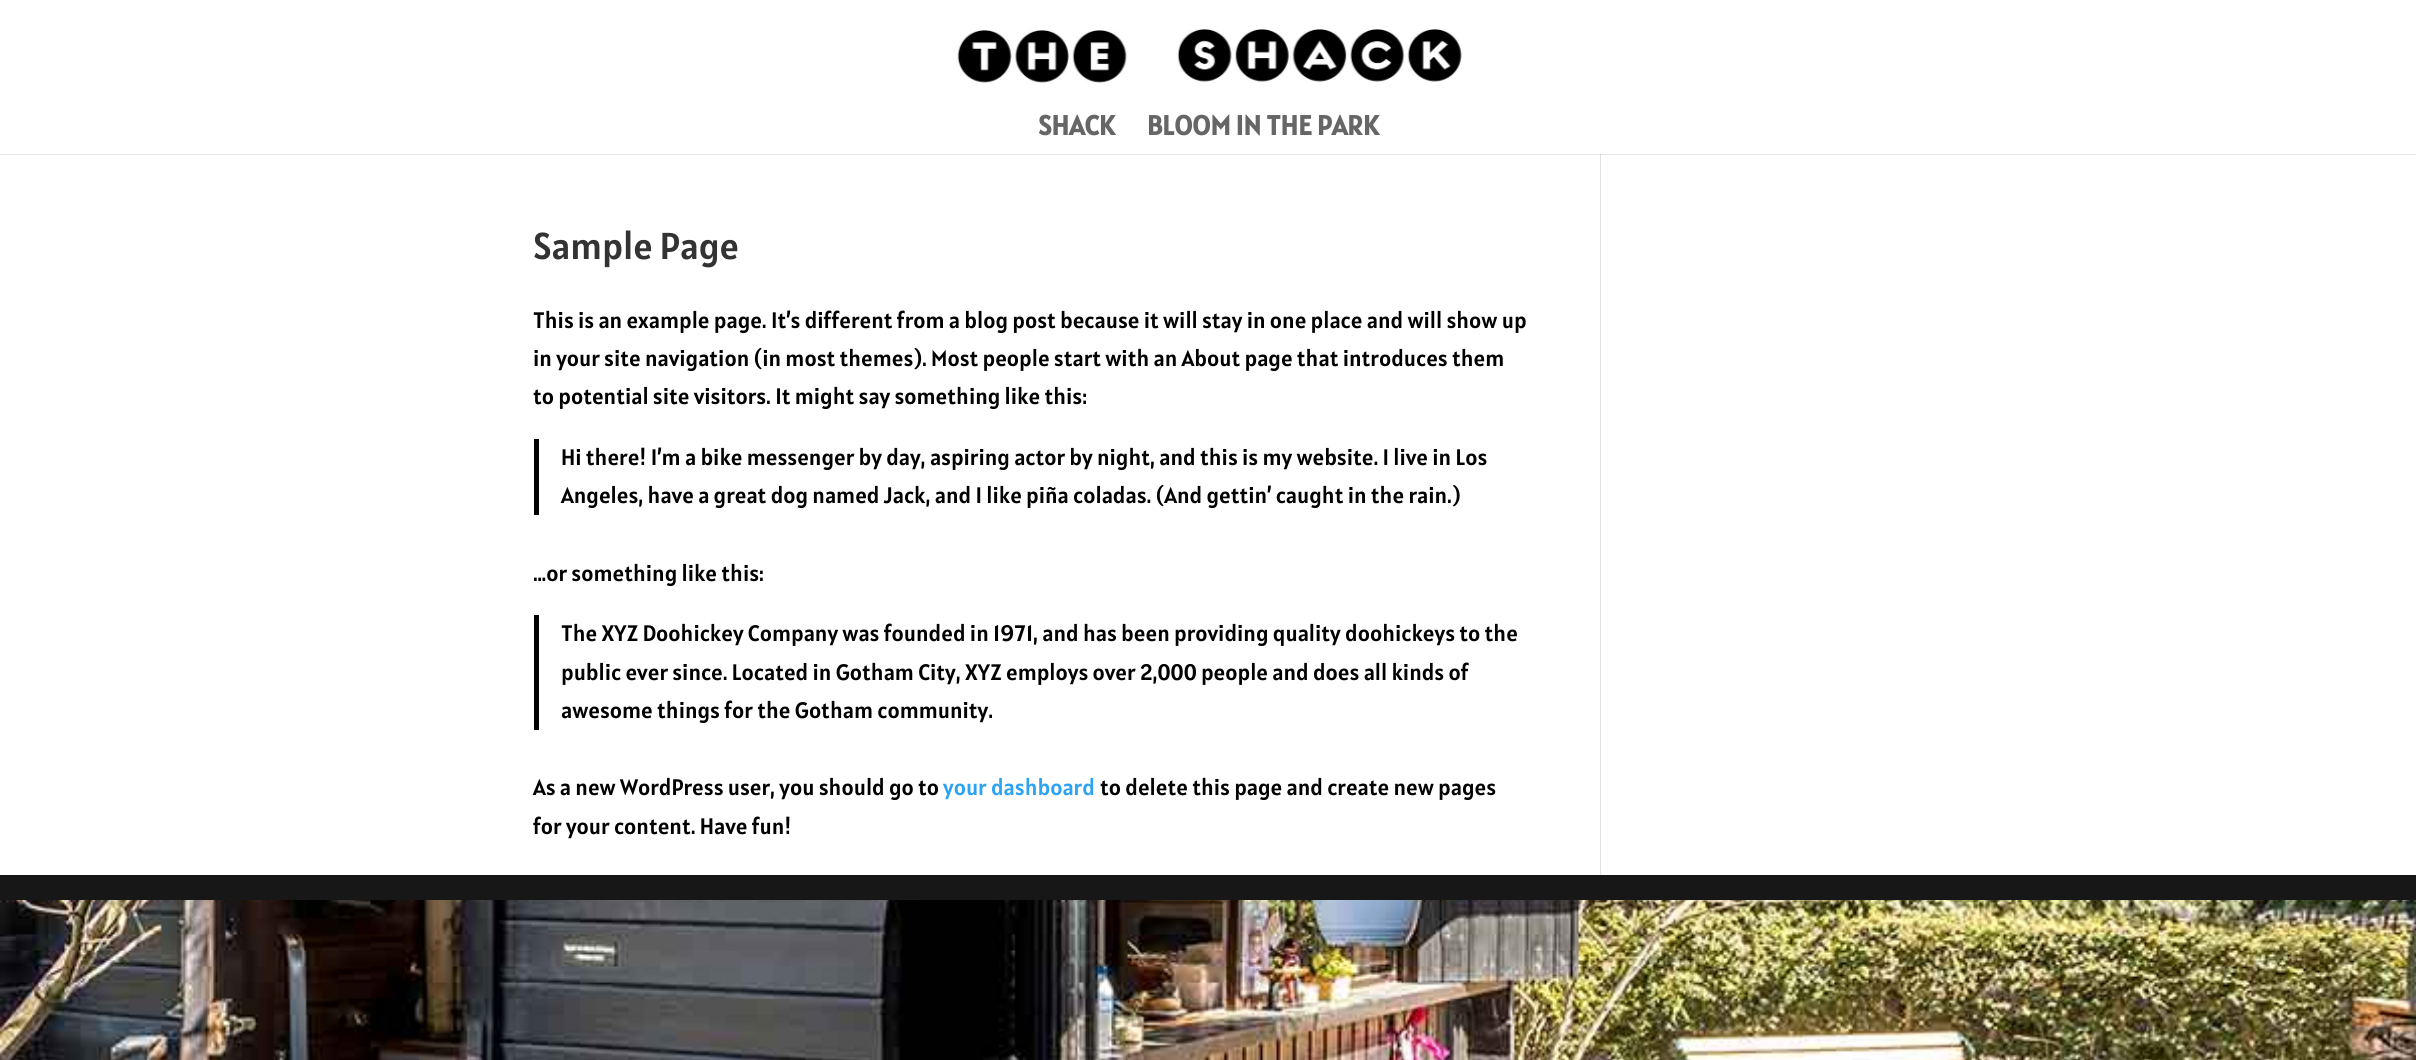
#include <cairo/cairo.h>
#include <math.h>
#include <stddef.h>

static cairo_t *cr;

static void use_color(int r, int g, int b) {
  cairo_set_source_rgb(cr, r / 255.0, g / 255.0, b / 255.0);
}

static void text(double x, double y, const char *s, const char *family, double size, int italic, int bold, int r, int g, int b) {
  cairo_select_font_face(cr, family, italic ? CAIRO_FONT_SLANT_ITALIC : CAIRO_FONT_SLANT_NORMAL,
    bold ? CAIRO_FONT_WEIGHT_BOLD : CAIRO_FONT_WEIGHT_NORMAL);
  cairo_set_font_size(cr, size);
  use_color(r, g, b);
  cairo_move_to(cr, x, y);
  cairo_show_text(cr, s);
}

static void box(double x, double y, double w, double h, int r, int g, int b) {
  use_color(r, g, b);
  cairo_rectangle(cr, x, y, w, h);
  cairo_fill(cr);
}

static void picture(const char *path, double x, double y, double w, double h) {
  cairo_surface_t *image = cairo_image_surface_create_from_png(path);
  cairo_save(cr);
  cairo_set_source_surface(cr, image, x, y);
  cairo_rectangle(cr, x, y, w, h);
  cairo_fill(cr);
  cairo_restore(cr);
  cairo_surface_destroy(image);
}

static void draw(void) {
  use_color(255, 255, 255);
  cairo_paint(cr);
  picture("img_01.png", 0, 900, 2416, 160);
  box(1600, 154, 1, 721, 226, 226, 226);
  cairo_set_source_rgba(cr, 0, 0, 0, 0.1);
  cairo_rectangle(cr, 0, 154, 2416, 1);
  cairo_fill(cr);
  picture("img_02.png", 957, 29, 505, 54);
  box(534, 439, 5, 76, 0, 0, 0);
  box(534, 615, 5, 115, 0, 0, 0);
  box(0, 875, 2416, 25, 23, 23, 23);
  text(1038, 135, "SHACK", "Alatsi", 27.5, 0, 1, 102, 102, 102);
  text(1147, 135, "BLOOM IN THE PARK", "Alatsi", 27.5, 0, 1, 102, 102, 102);
  text(533, 259, "Sample Page", "Alatsi", 37.5, 0, 0, 51, 51, 51);
  text(533, 328, "This is an example page. It’s different from a blog post because it will stay in one place and will show up", "Alatsi", 22.5, 0, 0, 0, 0, 0);
  text(533, 366, "in your site navigation (in most themes). Most people start with an About page that introduces them", "Alatsi", 22.5, 0, 0, 0, 0, 0);
  text(533, 404, "to potential site visitors. It might say something like this:", "Alatsi", 22.5, 0, 0, 0, 0, 0);
  text(561, 465, "Hi there! I’m a bike messenger by day, aspiring actor by night, and this is my website. I live in Los", "Alatsi", 22.5, 0, 0, 0, 0, 0);
  text(561, 503, "Angeles, have a great dog named Jack, and I like piña coladas. (And gettin’ caught in the rain.)", "Alatsi", 22.5, 0, 0, 0, 0, 0);
  text(533, 581, "…or something like this:", "Alatsi", 22.5, 0, 0, 0, 0, 0);
  text(561, 641, "The XYZ Doohickey Company was founded in 1971, and has been providing quality doohickeys to the", "Alatsi", 22.5, 0, 0, 0, 0, 0);
  text(561, 680, "public ever since. Located in Gotham City, XYZ employs over 2,000 people and does all kinds of", "Alatsi", 22.5, 0, 0, 0, 0, 0);
  text(561, 718, "awesome things for the Gotham community.", "Alatsi", 22.5, 0, 0, 0, 0, 0);
  text(533, 795, "As a new WordPress user, you should go to", "Alatsi", 22.5, 0, 0, 0, 0, 0);
  text(943, 795, "your dashboard", "Alatsi", 22.5, 0, 0, 46, 163, 242);
  text(1100, 795, "to delete this page and create new pages", "Alatsi", 22.5, 0, 0, 0, 0, 0);
  text(533, 834, "for your content. Have fun!", "Alatsi", 22.5, 0, 0, 0, 0, 0);
}

int main(void) {
  cairo_surface_t *surface = cairo_image_surface_create(CAIRO_FORMAT_RGB24, 2416, 1060);
  cr = cairo_create(surface);
  cairo_font_options_t *options = cairo_font_options_create();
  cairo_font_options_set_hint_metrics(options, CAIRO_HINT_METRICS_OFF);
  cairo_font_options_set_hint_style(options, CAIRO_HINT_STYLE_NONE);
  cairo_set_font_options(cr, options);
  cairo_set_miter_limit(cr, 4);
  draw();
  cairo_surface_write_to_png(surface, "out.png");
  cairo_font_options_destroy(options);
  cairo_destroy(cr);
  cairo_surface_destroy(surface);
  return 0;
}
